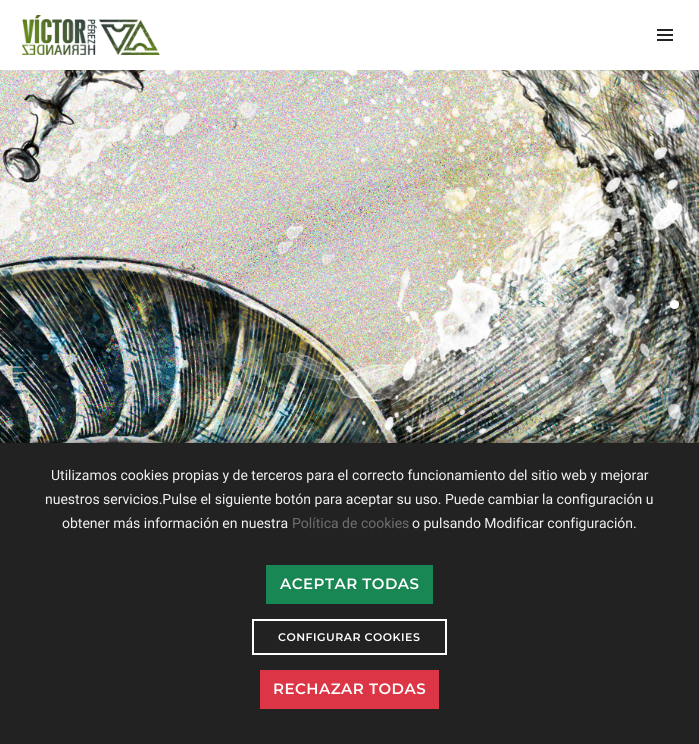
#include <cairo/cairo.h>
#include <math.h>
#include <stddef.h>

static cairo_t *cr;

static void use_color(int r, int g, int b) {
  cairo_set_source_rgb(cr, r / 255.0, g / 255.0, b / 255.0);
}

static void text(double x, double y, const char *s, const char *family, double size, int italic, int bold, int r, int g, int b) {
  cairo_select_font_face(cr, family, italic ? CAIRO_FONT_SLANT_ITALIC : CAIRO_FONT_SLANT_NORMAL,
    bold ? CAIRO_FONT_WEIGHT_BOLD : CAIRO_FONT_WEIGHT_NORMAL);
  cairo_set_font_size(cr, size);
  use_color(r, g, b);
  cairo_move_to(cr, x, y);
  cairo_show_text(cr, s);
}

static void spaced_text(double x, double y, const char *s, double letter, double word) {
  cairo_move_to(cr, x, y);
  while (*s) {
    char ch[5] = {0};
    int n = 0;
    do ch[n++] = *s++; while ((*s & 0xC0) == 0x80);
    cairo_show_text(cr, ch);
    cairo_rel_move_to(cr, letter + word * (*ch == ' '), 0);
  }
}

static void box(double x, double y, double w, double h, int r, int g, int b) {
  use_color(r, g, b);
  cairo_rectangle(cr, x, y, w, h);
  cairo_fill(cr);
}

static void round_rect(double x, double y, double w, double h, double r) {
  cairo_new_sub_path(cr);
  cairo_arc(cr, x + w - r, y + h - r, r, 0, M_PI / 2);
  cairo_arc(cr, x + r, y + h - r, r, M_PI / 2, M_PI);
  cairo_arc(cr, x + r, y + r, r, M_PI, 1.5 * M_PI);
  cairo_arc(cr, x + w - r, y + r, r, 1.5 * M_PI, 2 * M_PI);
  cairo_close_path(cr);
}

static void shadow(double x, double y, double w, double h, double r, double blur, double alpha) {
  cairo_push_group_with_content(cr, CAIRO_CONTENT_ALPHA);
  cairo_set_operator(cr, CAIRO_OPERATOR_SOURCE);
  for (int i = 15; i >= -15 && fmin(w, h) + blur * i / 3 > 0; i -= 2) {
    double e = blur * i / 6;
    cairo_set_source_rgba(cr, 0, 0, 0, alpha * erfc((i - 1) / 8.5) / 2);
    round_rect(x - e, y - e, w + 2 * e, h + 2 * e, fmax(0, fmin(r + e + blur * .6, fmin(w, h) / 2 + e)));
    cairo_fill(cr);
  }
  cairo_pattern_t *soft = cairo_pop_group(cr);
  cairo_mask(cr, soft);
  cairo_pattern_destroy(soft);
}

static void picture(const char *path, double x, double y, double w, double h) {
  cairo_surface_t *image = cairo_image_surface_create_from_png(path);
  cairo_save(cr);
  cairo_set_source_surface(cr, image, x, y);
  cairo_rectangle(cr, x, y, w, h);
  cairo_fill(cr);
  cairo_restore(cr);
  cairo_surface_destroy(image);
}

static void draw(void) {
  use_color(255, 255, 255);
  cairo_paint(cr);
  picture("img_01.png", 22, 15, 138, 40);
  box(657, 29, 16, 2, 35, 35, 35);
  box(657, 34, 16, 2, 35, 35, 35);
  box(657, 39, 16, 2, 35, 35, 35);
  picture("img_02.png", 0, 70, 699, 373);
  use_color(255, 255, 255);
  cairo_arc(cr, 674.5, 304.5, 4.5, 0, 2 * M_PI);
  cairo_fill(cr);
  cairo_set_source_rgba(cr, 1, 1, 1, 0.2);
  cairo_arc(cr, 674.5, 319.5, 4.5, 0, 2 * M_PI);
  cairo_fill(cr);
  cairo_arc(cr, 674.5, 334.5, 4.5, 0, 2 * M_PI);
  cairo_fill(cr);
  cairo_arc(cr, 674.5, 349.5, 4.5, 0, 2 * M_PI);
  cairo_fill(cr);
  cairo_arc(cr, 674.5, 364.5, 4.5, 0, 2 * M_PI);
  cairo_fill(cr);
  cairo_arc(cr, 674.5, 379.5, 4.5, 0, 2 * M_PI);
  cairo_fill(cr);
  cairo_arc(cr, 674.5, 394.5, 4.5, 0, 2 * M_PI);
  cairo_fill(cr);
  cairo_arc(cr, 674.5, 409.5, 4.5, 0, 2 * M_PI);
  cairo_fill(cr);
  cairo_arc(cr, 674.5, 424.5, 4.5, 0, 2 * M_PI);
  cairo_fill(cr);
  cairo_arc(cr, 674.5, 439.5, 4.5, 0, 2 * M_PI);
  cairo_fill(cr);
  use_color(0, 0, 0);
  shadow(0, 441, 699, 301, 0, 5, 0.5);
  box(0, 443, 699, 301, 34, 34, 34);
  box(266, 565, 167, 39, 25, 135, 84);
  cairo_rectangle(cr, 253, 620, 193, 34);
  use_color(255, 255, 255);
  cairo_stroke(cr);
  box(260, 670, 179, 39, 220, 53, 69);
  text(51, 480, "Utilizamos cookies propias y de terceros para el correcto funcionamiento del sitio web y mejorar", "Roboto", 14, 0, 0, 241, 241, 241);
  text(45, 504, "nuestros servicios.Pulse el siguiente botón para aceptar su uso. Puede cambiar la configuración u", "Roboto", 14, 0, 0, 241, 241, 241);
  text(62, 528, "obtener más información en nuestra", "Roboto", 14, 0, 0, 241, 241, 241);
  text(292, 528, "Política de cookies", "Roboto", 14, 0, 0, 111, 111, 111);
  text(412, 528, "o pulsando Modificar configuración.", "Roboto", 14, 0, 0, 241, 241, 241);
  cairo_select_font_face(cr, "Montserrat SemiBold", CAIRO_FONT_SLANT_NORMAL, CAIRO_FONT_WEIGHT_NORMAL);
  cairo_set_font_size(cr, 15);
  use_color(255, 255, 255);
  spaced_text(280, 589, "ACEPTAR TODAS", 0.5, 0);
  cairo_set_font_size(cr, 11);
  spaced_text(278, 641, "CONFIGURAR COOKIES", 0.5, 0);
  cairo_set_font_size(cr, 15);
  spaced_text(273, 694, "RECHAZAR TODAS", 0.5, 0);
}

int main(void) {
  cairo_surface_t *surface = cairo_image_surface_create(CAIRO_FORMAT_RGB24, 699, 744);
  cr = cairo_create(surface);
  cairo_font_options_t *options = cairo_font_options_create();
  cairo_font_options_set_hint_metrics(options, CAIRO_HINT_METRICS_OFF);
  cairo_font_options_set_hint_style(options, CAIRO_HINT_STYLE_NONE);
  cairo_set_font_options(cr, options);
  cairo_set_miter_limit(cr, 4);
  draw();
  cairo_surface_write_to_png(surface, "out.png");
  cairo_font_options_destroy(options);
  cairo_destroy(cr);
  cairo_surface_destroy(surface);
  return 0;
}
